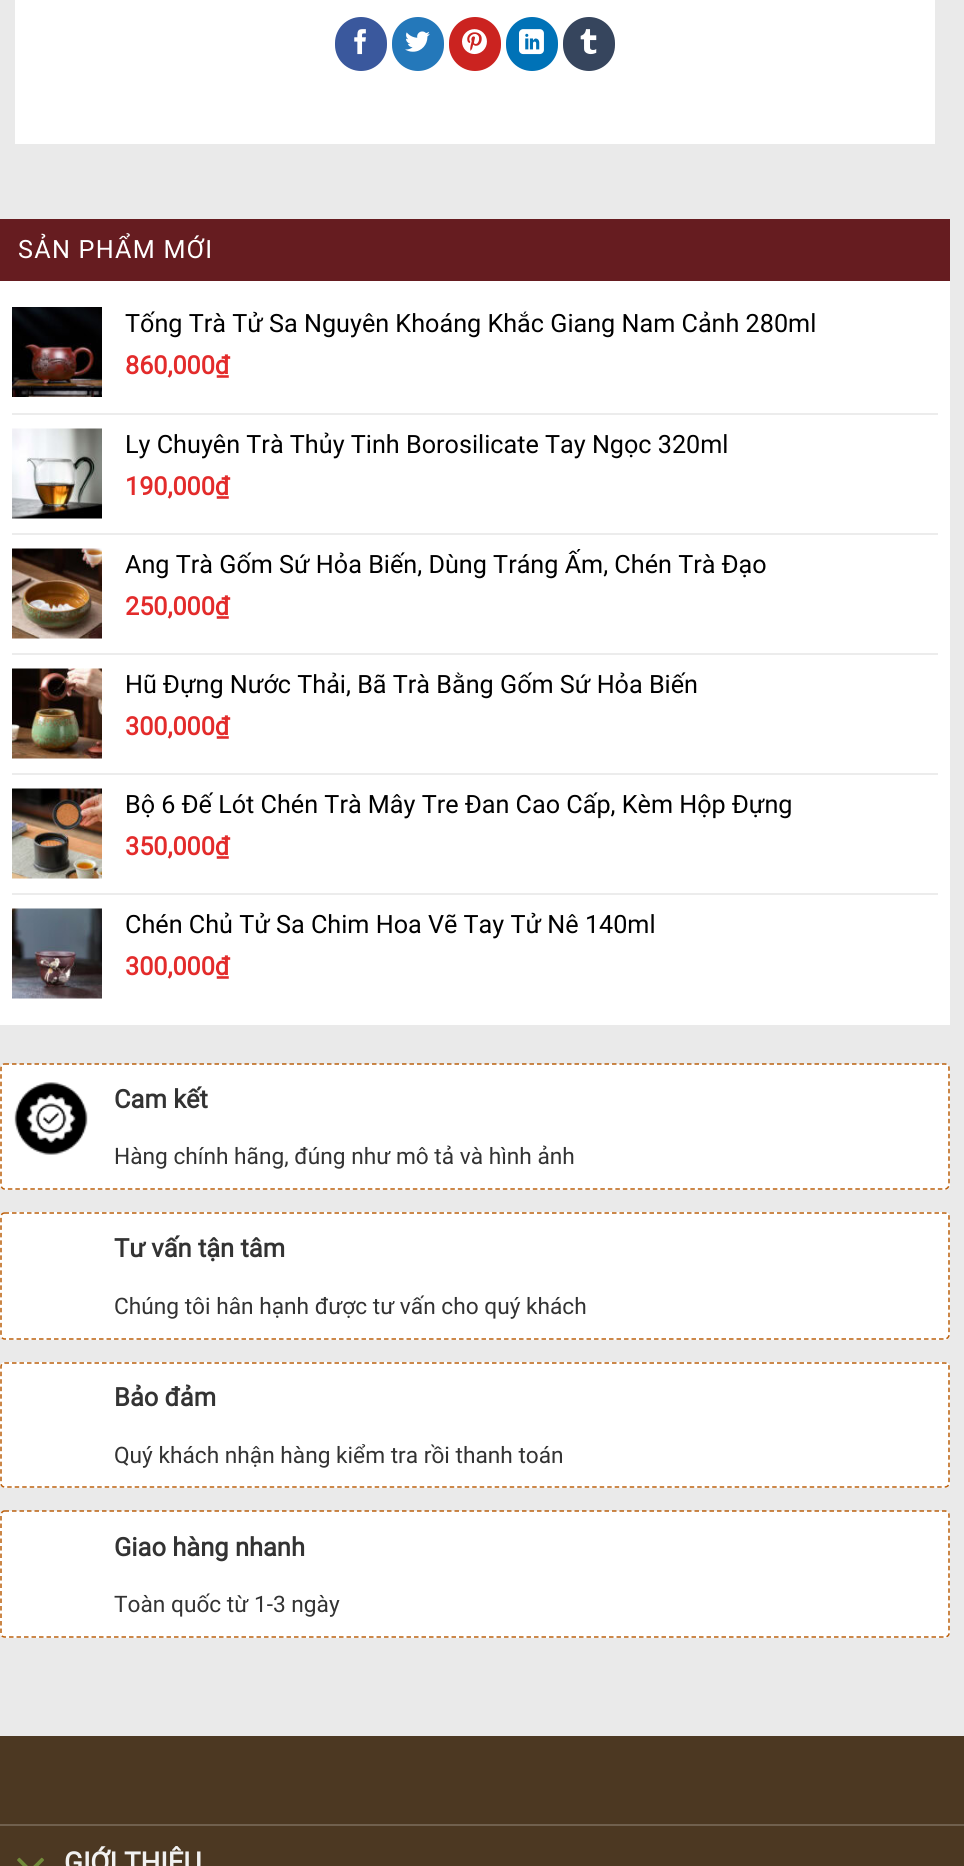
#include <cairo/cairo.h>
#include <math.h>
#include <stddef.h>

static cairo_t *cr;

static void use_color(int r, int g, int b) {
  cairo_set_source_rgb(cr, r / 255.0, g / 255.0, b / 255.0);
}

static void text(double x, double y, const char *s, const char *family, double size, int italic, int bold, int r, int g, int b) {
  cairo_select_font_face(cr, family, italic ? CAIRO_FONT_SLANT_ITALIC : CAIRO_FONT_SLANT_NORMAL,
    bold ? CAIRO_FONT_WEIGHT_BOLD : CAIRO_FONT_WEIGHT_NORMAL);
  cairo_set_font_size(cr, size);
  use_color(r, g, b);
  cairo_move_to(cr, x, y);
  cairo_show_text(cr, s);
}

static void spaced_text(double x, double y, const char *s, double letter, double word) {
  cairo_move_to(cr, x, y);
  while (*s) {
    char ch[5] = {0};
    int n = 0;
    do ch[n++] = *s++; while ((*s & 0xC0) == 0x80);
    cairo_show_text(cr, ch);
    cairo_rel_move_to(cr, letter + word * (*ch == ' '), 0);
  }
}

static void box(double x, double y, double w, double h, int r, int g, int b) {
  use_color(r, g, b);
  cairo_rectangle(cr, x, y, w, h);
  cairo_fill(cr);
}

static void round_rect(double x, double y, double w, double h, double r) {
  cairo_new_sub_path(cr);
  cairo_arc(cr, x + w - r, y + h - r, r, 0, M_PI / 2);
  cairo_arc(cr, x + r, y + h - r, r, M_PI / 2, M_PI);
  cairo_arc(cr, x + r, y + r, r, M_PI, 1.5 * M_PI);
  cairo_arc(cr, x + w - r, y + r, r, 1.5 * M_PI, 2 * M_PI);
  cairo_close_path(cr);
}

static void picture(const char *path, double x, double y, double w, double h) {
  cairo_surface_t *image = cairo_image_surface_create_from_png(path);
  cairo_save(cr);
  cairo_set_source_surface(cr, image, x, y);
  cairo_rectangle(cr, x, y, w, h);
  cairo_fill(cr);
  cairo_restore(cr);
  cairo_surface_destroy(image);
}

static void draw(void) {
  use_color(234, 234, 234);
  cairo_paint(cr);
  box(15, 0, 920, 144, 255, 255, 255);
  use_color(58, 88, 157);
  round_rect(336, 18, 50, 52, 25);
  cairo_fill_preserve(cr);
  cairo_stroke(cr);
  picture("img_01.png", 354, 29, 12, 26);
  use_color(36, 120, 186);
  round_rect(393, 18, 50, 52, 25);
  cairo_fill_preserve(cr);
  cairo_stroke(cr);
  picture("img_02.png", 405, 31, 25, 21);
  use_color(203, 35, 32);
  round_rect(450, 18, 50, 52, 25);
  cairo_fill_preserve(cr);
  cairo_stroke(cr);
  picture("img_03.png", 462, 29, 25, 26);
  use_color(0, 114, 183);
  round_rect(507, 18, 50, 52, 25);
  cairo_fill_preserve(cr);
  cairo_stroke(cr);
  picture("img_04.png", 519, 29, 25, 26);
  use_color(54, 69, 93);
  round_rect(564, 18, 50, 52, 25);
  cairo_fill_preserve(cr);
  cairo_stroke(cr);
  picture("img_05.png", 580, 29, 17, 26);
  box(0, 219, 950, 62, 102, 28, 32);
  box(0, 281, 950, 744, 255, 255, 255);
  picture("img_06.png", 12, 307, 90, 90);
  box(12, 413, 926, 2, 236, 236, 236);
  picture("img_07.png", 12, 428, 90, 91);
  box(12, 533, 926, 2, 236, 236, 236);
  picture("img_08.png", 12, 548, 90, 91);
  box(12, 653, 926, 2, 236, 236, 236);
  picture("img_09.png", 12, 668, 90, 91);
  box(12, 773, 926, 2, 236, 236, 236);
  picture("img_10.png", 12, 788, 90, 91);
  box(12, 893, 926, 2, 236, 236, 236);
  picture("img_11.png", 12, 908, 90, 91);
  use_color(255, 255, 255);
  round_rect(0, 1064, 950, 126, 5);
  cairo_fill(cr);
  cairo_new_path(cr);
  cairo_move_to(cr, 4.5, 1064);
  cairo_line_to(cr, 945, 1064);
  cairo_curve_to(cr, 947, 1064, 949, 1066, 949, 1068);
  cairo_line_to(cr, 949, 1185);
  cairo_curve_to(cr, 949, 1187, 947, 1189, 945, 1189);
  cairo_line_to(cr, 4.5, 1189);
  cairo_curve_to(cr, 2.5, 1189, 1, 1187, 1, 1185);
  cairo_line_to(cr, 1, 1068);
  cairo_curve_to(cr, 1, 1066, 2.5, 1064, 4.5, 1064);
  cairo_close_path(cr);
  use_color(186, 93, 8);
  cairo_set_line_width(cr, 1.5);
  cairo_set_dash(cr, (double[]){4.5, 3}, 2, 0);
  cairo_stroke(cr);
  picture("img_12.png", 14, 1082, 74, 73);
  use_color(255, 255, 255);
  round_rect(0, 1212, 950, 128, 5);
  cairo_fill(cr);
  cairo_new_path(cr);
  cairo_move_to(cr, 4.5, 1213);
  cairo_line_to(cr, 945, 1213);
  cairo_curve_to(cr, 947, 1213, 949, 1214.5, 949, 1216.5);
  cairo_line_to(cr, 949, 1335);
  cairo_curve_to(cr, 949, 1337, 947, 1339, 945, 1339);
  cairo_line_to(cr, 4.5, 1339);
  cairo_curve_to(cr, 2.5, 1339, 1, 1337, 1, 1335);
  cairo_line_to(cr, 1, 1216.5);
  cairo_curve_to(cr, 1, 1214.5, 2.5, 1213, 4.5, 1213);
  cairo_close_path(cr);
  use_color(186, 93, 8);
  cairo_stroke(cr);
  use_color(255, 255, 255);
  round_rect(0, 1362, 950, 126, 5);
  cairo_fill(cr);
  cairo_new_path(cr);
  cairo_move_to(cr, 4.5, 1363);
  cairo_line_to(cr, 945, 1363);
  cairo_curve_to(cr, 947, 1363, 949, 1364.5, 949, 1366.5);
  cairo_line_to(cr, 949, 1483.5);
  cairo_curve_to(cr, 949, 1485.5, 947, 1487, 945, 1487);
  cairo_line_to(cr, 4.5, 1487);
  cairo_curve_to(cr, 2.5, 1487, 1, 1485.5, 1, 1483.5);
  cairo_line_to(cr, 1, 1366.5);
  cairo_curve_to(cr, 1, 1364.5, 2.5, 1363, 4.5, 1363);
  cairo_close_path(cr);
  use_color(186, 93, 8);
  cairo_stroke(cr);
  use_color(255, 255, 255);
  round_rect(0, 1511, 950, 127, 5);
  cairo_fill(cr);
  cairo_new_path(cr);
  cairo_move_to(cr, 4.5, 1511);
  cairo_line_to(cr, 945, 1511);
  cairo_curve_to(cr, 947, 1511, 949, 1513, 949, 1515);
  cairo_line_to(cr, 949, 1633.5);
  cairo_curve_to(cr, 949, 1635.5, 947, 1637, 945, 1637);
  cairo_line_to(cr, 4.5, 1637);
  cairo_curve_to(cr, 2.5, 1637, 1, 1635.5, 1, 1633.5);
  cairo_line_to(cr, 1, 1515);
  cairo_curve_to(cr, 1, 1513, 2.5, 1511, 4.5, 1511);
  cairo_close_path(cr);
  use_color(186, 93, 8);
  cairo_stroke(cr);
  box(0, 1736, 964, 130, 76, 56, 34);
  box(0, 1824, 964, 2, 112, 96, 78);
  picture("img_13.png", 17, 1857, 27, 9);
  cairo_select_font_face(cr, "Roboto", CAIRO_FONT_SLANT_NORMAL, CAIRO_FONT_WEIGHT_NORMAL);
  cairo_set_font_size(cr, 25.2);
  use_color(255, 255, 255);
  spaced_text(18, 258, "SẢN PHẨM MỚI", 1.25, 0);
  text(125, 332, "Tống Trà Tử Sa Nguyên Khoáng Khắc Giang Nam Cảnh 280ml", "Roboto", 25.2, 0, 0, 0, 0, 0);
  text(125, 374, "860,000₫", "Roboto", 25.2, 0, 1, 227, 43, 43);
  text(125, 453, "Ly Chuyên Trà Thủy Tinh Borosilicate Tay Ngọc 320ml", "Roboto", 25.2, 0, 0, 0, 0, 0);
  text(125, 495, "190,000₫", "Roboto", 25.2, 0, 1, 227, 43, 43);
  cairo_save(cr);
  cairo_rectangle(cr, 125, 549, 813, 33);
  cairo_clip(cr);
  text(125, 573, "Ang Trà Gốm Sứ Hỏa Biến, Dùng Tráng Ấm, Chén Trà Đạo", "Roboto", 25.2, 0, 0, 0, 0, 0);
  cairo_restore(cr);
  text(125, 615, "250,000₫", "Roboto", 25.2, 0, 1, 227, 43, 43);
  text(125, 693, "Hũ Đựng Nước Thải, Bã Trà Bằng Gốm Sứ Hỏa Biến", "Roboto", 25.2, 0, 0, 0, 0, 0);
  text(125, 735, "300,000₫", "Roboto", 25.2, 0, 1, 227, 43, 43);
  text(125, 813, "Bộ 6 Đế Lót Chén Trà Mây Tre Đan Cao Cấp, Kèm Hộp Đựng", "Roboto", 25.2, 0, 0, 0, 0, 0);
  text(125, 855, "350,000₫", "Roboto", 25.2, 0, 1, 227, 43, 43);
  text(125, 933, "Chén Chủ Tử Sa Chim Hoa Vẽ Tay Tử Nê 140ml", "Roboto", 25.2, 0, 0, 0, 0, 0);
  text(125, 975, "300,000₫", "Roboto", 25.2, 0, 1, 227, 43, 43);
  text(114, 1108, "Cam kết", "Roboto", 25.5, 0, 1, 51, 51, 51);
  text(114, 1164, "Hàng chính hãng, đúng như mô tả và hình ảnh", "Roboto", 22.7, 0, 0, 51, 51, 51);
  text(114, 1257, "Tư vấn tận tâm", "Roboto", 25.5, 0, 1, 51, 51, 51);
  text(114, 1314, "Chúng tôi hân hạnh được tư vấn cho quý khách", "Roboto", 22.7, 0, 0, 51, 51, 51);
  text(114, 1406, "Bảo đảm", "Roboto", 25.5, 0, 1, 51, 51, 51);
  text(114, 1463, "Quý khách nhận hàng kiểm tra rồi thanh toán", "Roboto", 22.7, 0, 0, 51, 51, 51);
  text(114, 1556, "Giao hàng nhanh", "Roboto", 25.5, 0, 1, 51, 51, 51);
  text(114, 1612, "Toàn quốc từ 1-3 ngày", "Roboto", 22.7, 0, 0, 51, 51, 51);
  text(64, 1872, "GIỚI THIỆU", "Roboto", 27.75, 0, 1, 241, 241, 241);
}

int main(void) {
  cairo_surface_t *surface = cairo_image_surface_create(CAIRO_FORMAT_RGB24, 964, 1866);
  cr = cairo_create(surface);
  cairo_font_options_t *options = cairo_font_options_create();
  cairo_font_options_set_hint_metrics(options, CAIRO_HINT_METRICS_OFF);
  cairo_font_options_set_hint_style(options, CAIRO_HINT_STYLE_NONE);
  cairo_set_font_options(cr, options);
  cairo_set_miter_limit(cr, 4);
  draw();
  cairo_surface_write_to_png(surface, "out.png");
  cairo_font_options_destroy(options);
  cairo_destroy(cr);
  cairo_surface_destroy(surface);
  return 0;
}
